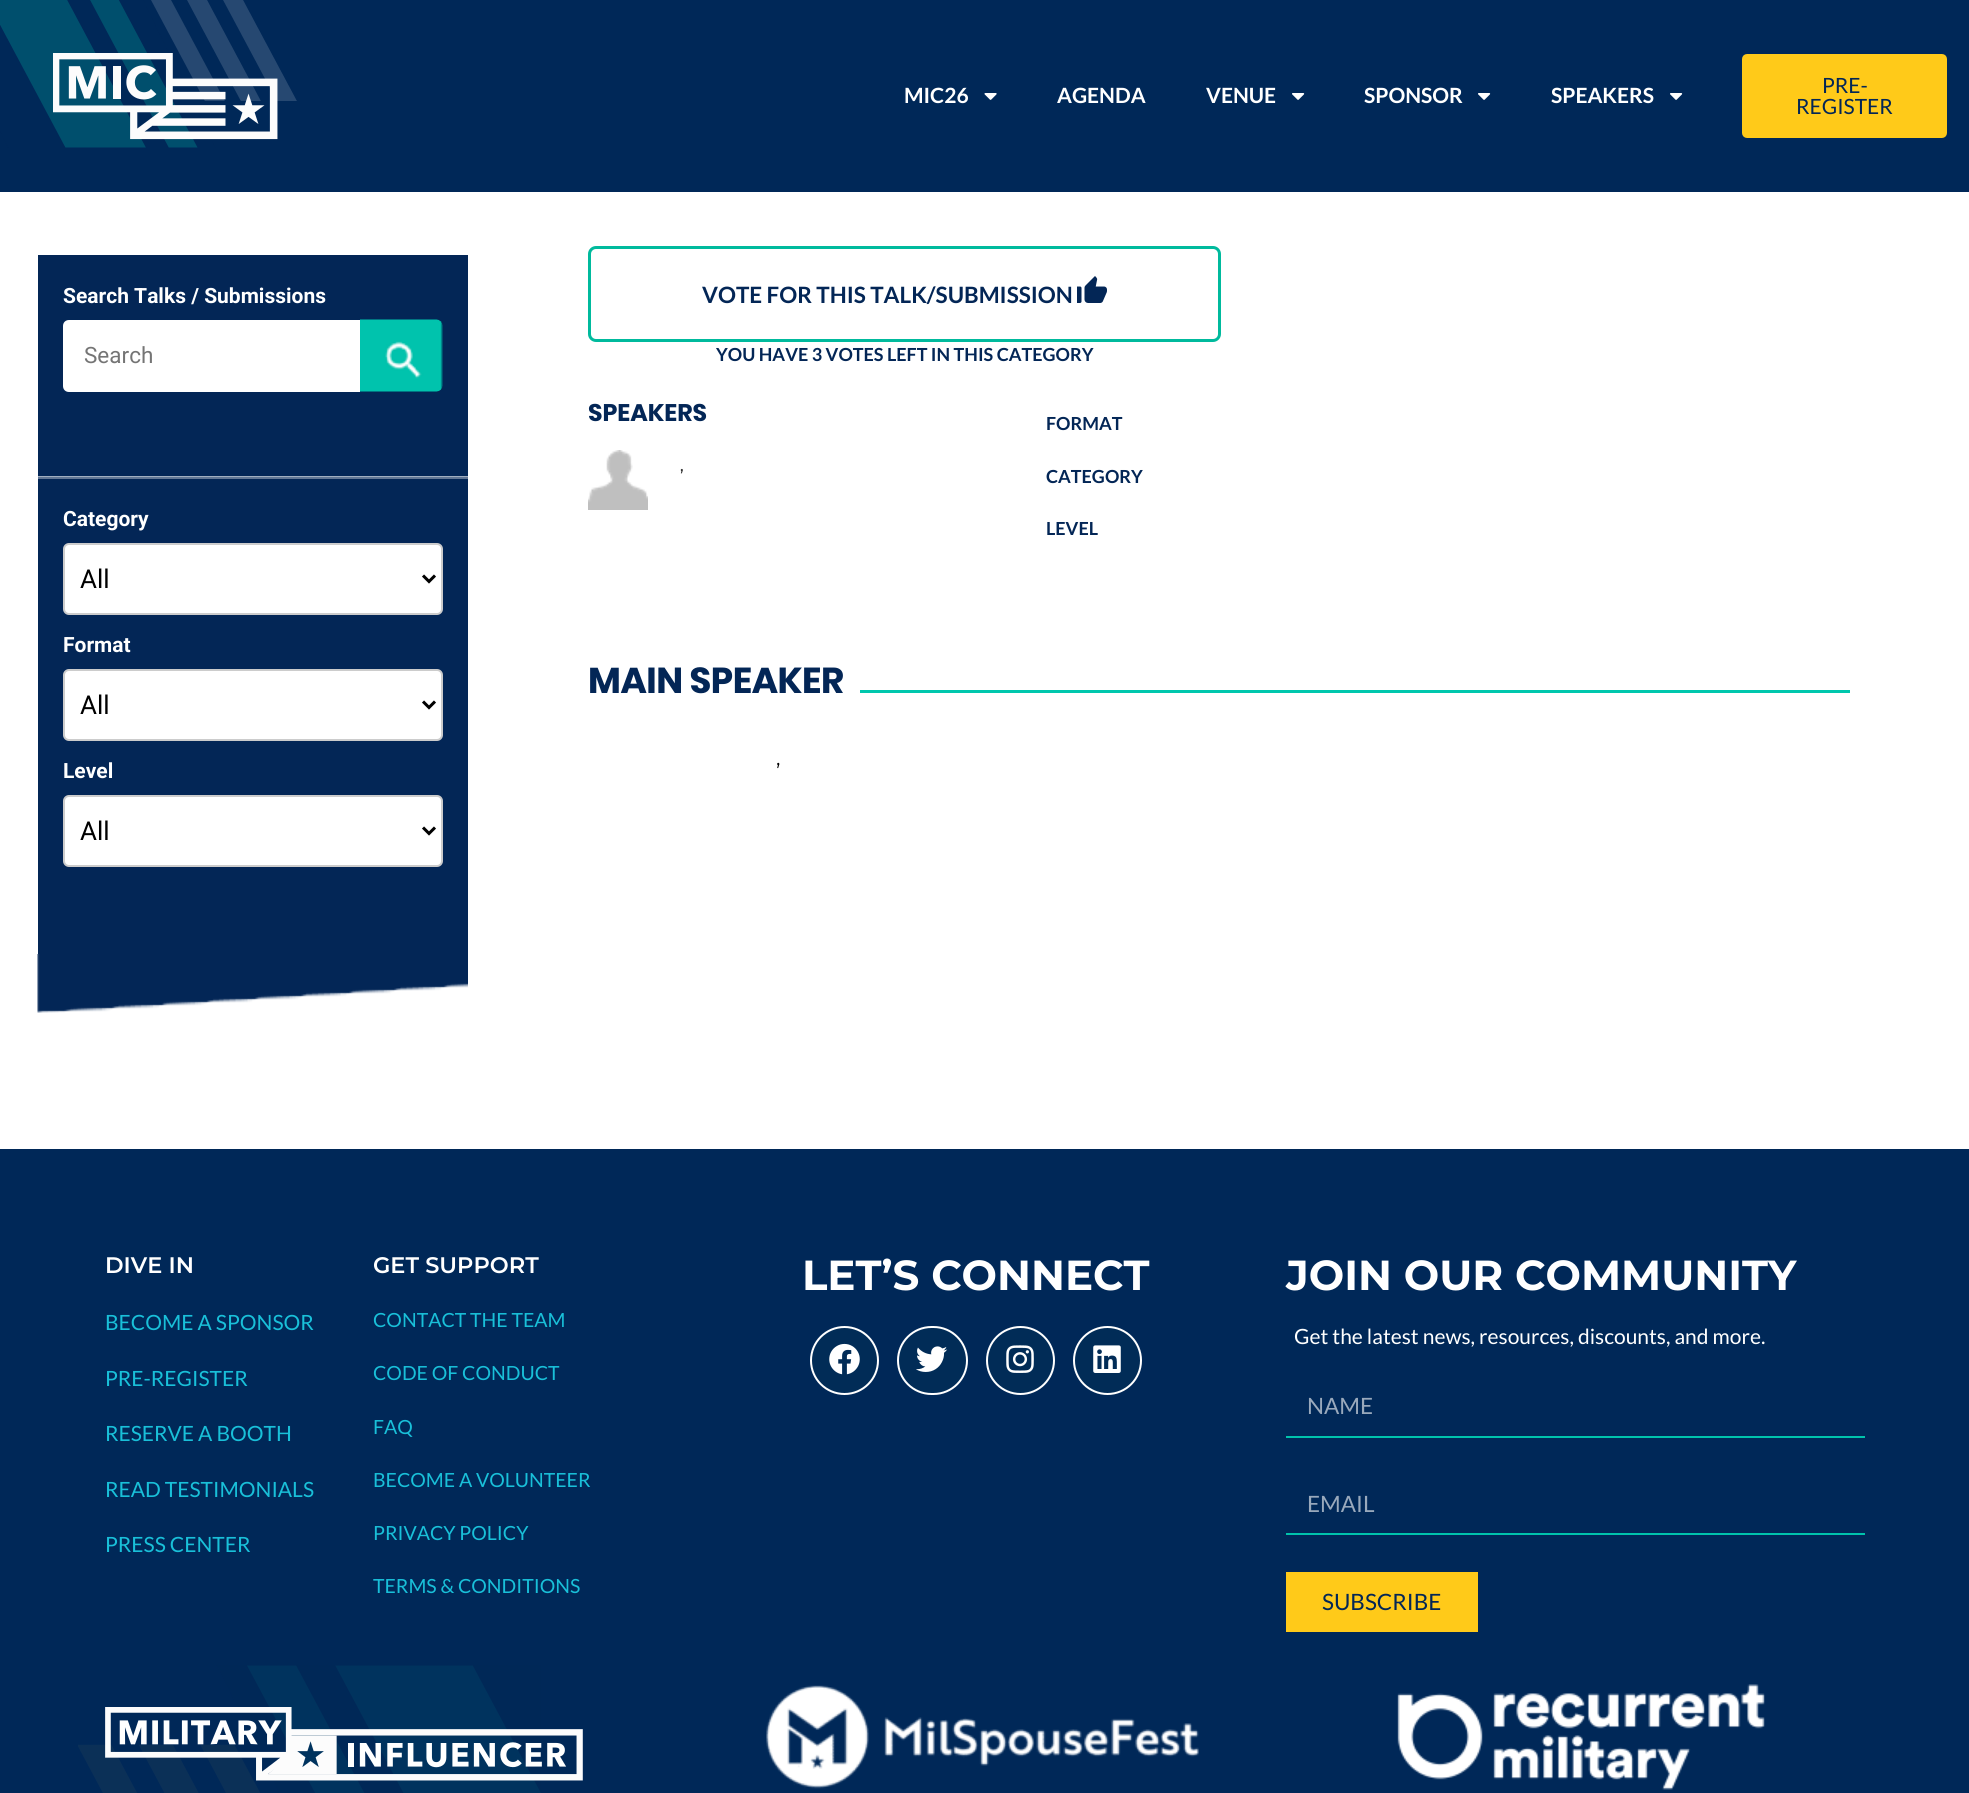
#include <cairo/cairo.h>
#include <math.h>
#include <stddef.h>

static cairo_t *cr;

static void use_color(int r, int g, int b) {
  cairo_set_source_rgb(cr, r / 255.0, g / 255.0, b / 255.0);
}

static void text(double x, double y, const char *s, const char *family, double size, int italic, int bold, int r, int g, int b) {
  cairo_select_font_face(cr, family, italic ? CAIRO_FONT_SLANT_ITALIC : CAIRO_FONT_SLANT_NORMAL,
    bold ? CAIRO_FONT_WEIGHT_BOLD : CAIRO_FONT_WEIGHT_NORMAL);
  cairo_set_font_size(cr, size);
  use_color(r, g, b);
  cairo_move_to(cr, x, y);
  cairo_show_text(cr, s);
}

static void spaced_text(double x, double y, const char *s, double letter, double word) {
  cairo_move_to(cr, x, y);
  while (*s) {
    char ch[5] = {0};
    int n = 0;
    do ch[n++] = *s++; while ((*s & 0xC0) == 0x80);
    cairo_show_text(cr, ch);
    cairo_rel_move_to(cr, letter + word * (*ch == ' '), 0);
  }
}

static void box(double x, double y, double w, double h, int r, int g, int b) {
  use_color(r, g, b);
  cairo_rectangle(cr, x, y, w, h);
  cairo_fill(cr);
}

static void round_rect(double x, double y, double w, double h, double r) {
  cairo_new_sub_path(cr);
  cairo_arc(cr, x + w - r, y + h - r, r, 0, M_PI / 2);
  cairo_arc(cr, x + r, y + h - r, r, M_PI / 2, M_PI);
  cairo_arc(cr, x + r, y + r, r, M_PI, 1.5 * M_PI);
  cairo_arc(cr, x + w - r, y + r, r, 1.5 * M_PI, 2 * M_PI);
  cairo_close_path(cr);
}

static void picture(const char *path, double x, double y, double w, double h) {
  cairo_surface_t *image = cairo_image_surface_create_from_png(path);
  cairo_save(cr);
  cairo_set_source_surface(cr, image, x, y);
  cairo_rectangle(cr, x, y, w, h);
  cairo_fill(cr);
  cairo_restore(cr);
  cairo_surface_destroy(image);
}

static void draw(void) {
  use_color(255, 255, 255);
  cairo_paint(cr);
  box(0, 0, 1969, 192, 0, 40, 88);
  picture("img_01.png", 0, 0, 297, 148);
  picture("img_02.png", 53, 53, 225, 87);
  picture("img_03.png", 984, 93, 13, 7);
  picture("img_04.png", 1292, 93, 13, 7);
  picture("img_04.png", 1478, 93, 13, 7);
  picture("img_04.png", 1670, 93, 13, 7);
  use_color(255, 202, 25);
  round_rect(1743.5, 55.5, 202, 81, 3.5);
  cairo_fill_preserve(cr);
  cairo_set_line_width(cr, 3);
  cairo_stroke(cr);
  box(38, 255, 430, 699, 3, 38, 86);
  use_color(255, 255, 255);
  cairo_new_path(cr);
  cairo_move_to(cr, 69, 320);
  cairo_line_to(cr, 360, 320);
  cairo_line_to(cr, 360, 392);
  cairo_line_to(cr, 69, 392);
  cairo_curve_to(cr, 65.5, 392, 63, 389.5, 63, 386);
  cairo_line_to(cr, 63, 326);
  cairo_curve_to(cr, 63, 322.5, 65.5, 320, 69, 320);
  cairo_close_path(cr);
  cairo_fill(cr);
  picture("img_05.png", 360, 319, 83, 73);
  box(38, 476, 430, 1, 160, 174, 192);
  box(38, 477, 430, 2, 98, 119, 149);
  use_color(255, 255, 255);
  round_rect(64, 544, 378, 70, 5);
  cairo_fill_preserve(cr);
  use_color(204, 204, 204);
  cairo_set_line_width(cr, 2);
  cairo_stroke(cr);
  cairo_new_path(cr);
  cairo_move_to(cr, 423, 575.5);
  cairo_line_to(cr, 429, 581.5);
  cairo_line_to(cr, 435, 575.5);
  use_color(0, 0, 0);
  cairo_set_line_width(cr, 3);
  cairo_stroke(cr);
  use_color(255, 255, 255);
  round_rect(64, 670, 378, 70, 5);
  cairo_fill_preserve(cr);
  use_color(204, 204, 204);
  cairo_set_line_width(cr, 2);
  cairo_stroke(cr);
  cairo_new_path(cr);
  cairo_move_to(cr, 423, 701.5);
  cairo_line_to(cr, 429, 707.5);
  cairo_line_to(cr, 435, 701.5);
  use_color(0, 0, 0);
  cairo_set_line_width(cr, 3);
  cairo_stroke(cr);
  use_color(255, 255, 255);
  round_rect(64, 796, 378, 70, 5);
  cairo_fill_preserve(cr);
  use_color(204, 204, 204);
  cairo_set_line_width(cr, 2);
  cairo_stroke(cr);
  cairo_new_path(cr);
  cairo_move_to(cr, 423, 827.5);
  cairo_line_to(cr, 429, 833.5);
  cairo_line_to(cr, 435, 827.5);
  use_color(0, 0, 0);
  cairo_set_line_width(cr, 3);
  cairo_stroke(cr);
  picture("img_06.png", 37, 954, 431, 59);
  round_rect(589.5, 247.5, 630, 93, 6.5);
  use_color(0, 186, 157);
  cairo_stroke(cr);
  picture("img_07.png", 1077, 276, 30, 27);
  picture("img_08.png", 588, 450, 60, 60);
  box(860, 690, 990, 3, 0, 199, 173);
  box(0, 1149, 1969, 644, 0, 40, 88);
  use_color(1, 44, 87);
  cairo_arc(cr, 844.5, 1360.5, 33.5, 0, 2 * M_PI);
  cairo_fill_preserve(cr);
  use_color(255, 255, 255);
  cairo_set_line_width(cr, 2);
  cairo_stroke(cr);
  picture("img_09.png", 829, 1343, 31, 32);
  use_color(1, 44, 87);
  round_rect(898, 1327, 69, 67, 33.5);
  cairo_fill_preserve(cr);
  use_color(255, 255, 255);
  cairo_stroke(cr);
  picture("img_10.png", 916, 1346, 32, 26);
  use_color(1, 44, 87);
  cairo_arc(cr, 1020.5, 1360.5, 33.5, 0, 2 * M_PI);
  cairo_fill_preserve(cr);
  use_color(255, 255, 255);
  cairo_stroke(cr);
  picture("img_11.png", 1006, 1345, 28, 28);
  use_color(1, 44, 87);
  cairo_arc(cr, 1107.5, 1360.5, 33.5, 0, 2 * M_PI);
  cairo_fill_preserve(cr);
  use_color(255, 255, 255);
  cairo_stroke(cr);
  picture("img_12.png", 1093, 1345, 28, 28);
  box(1286, 1436, 579, 2, 0, 195, 172);
  box(1286, 1533, 579, 2, 0, 195, 172);
  box(1286, 1572, 192, 60, 255, 202, 25);
  picture("img_16.png", 78, 1665, 463, 128);
  picture("img_13.png", 105, 1707, 478, 74);
  picture("img_14.png", 766, 1685, 433, 104);
  picture("img_15.png", 1397, 1684, 368, 106);
  text(904, 103, "MIC26", "Lato", 21, 0, 1, 255, 255, 255);
  text(1057, 103, "AGENDA", "Lato", 21, 0, 1, 255, 255, 255);
  text(1206, 103, "VENUE", "Lato", 21, 0, 1, 255, 255, 255);
  text(1364, 103, "SPONSOR", "Lato", 21, 0, 1, 255, 255, 255);
  text(1551, 103, "SPEAKERS", "Lato", 21, 0, 1, 255, 255, 255);
  text(1822, 93, "PRE-", "Lato", 21, 0, 0, 3, 38, 86);
  text(1796, 114, "REGISTER", "Lato", 21, 0, 0, 3, 38, 86);
  text(63, 303, "Search Talks / Submissions", "Roboto", 21, 0, 1, 255, 255, 255);
  text(84, 363, "Search", "Roboto", 22.5, 0, 0, 117, 117, 117);
  text(63, 526, "Category", "Roboto", 21, 0, 1, 255, 255, 255);
  text(80, 588, "All", "Roboto", 26, 0, 0, 0, 0, 0);
  text(63, 652, "Format", "Roboto", 21, 0, 1, 255, 255, 255);
  text(80, 714, "All", "Roboto", 26, 0, 0, 0, 0, 0);
  text(63, 778, "Level", "Roboto", 21, 0, 1, 255, 255, 255);
  text(80, 840, "All", "Roboto", 26, 0, 0, 0, 0, 0);
  text(702, 303, "VOTE FOR THIS TALK/SUBMISSION", "Lato", 22.5, 0, 1, 3, 38, 86);
  text(716, 361, "YOU HAVE 3 VOTES LEFT IN THIS CATEGORY", "Lato", 18, 0, 1, 3, 38, 86);
  text(588, 421, "SPEAKERS", "Poppins", 24, 0, 1, 3, 38, 86);
  text(680, 471, ",", "Montserrat Thin", 16, 0, 0, 51, 51, 51);
  text(1046, 430, "FORMAT", "Lato", 18, 0, 1, 3, 38, 86);
  text(1046, 483, "CATEGORY", "Lato", 18, 0, 1, 3, 38, 86);
  text(1046, 535, "LEVEL", "Lato", 18, 0, 1, 3, 38, 86);
  cairo_select_font_face(cr, "Poppins", CAIRO_FONT_SLANT_NORMAL, CAIRO_FONT_WEIGHT_BOLD);
  cairo_set_font_size(cr, 36);
  spaced_text(588, 693, "MAIN SPEAKER", -0.4, 0);
  text(776, 765, ",", "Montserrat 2 Thin", 21, 0, 0, 0, 0, 0);
  text(105, 1273, "DIVE IN", "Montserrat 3 Thin", 22.5, 0, 0, 255, 255, 255);
  text(105, 1330, "BECOME A SPONSOR", "Lato", 21, 0, 0, 25, 192, 217);
  text(105, 1386, "PRE-REGISTER", "Lato", 21, 0, 0, 25, 192, 217);
  text(105, 1441, "RESERVE A BOOTH", "Lato", 21, 0, 0, 25, 192, 217);
  text(105, 1497, "READ TESTIMONIALS", "Lato", 21, 0, 0, 25, 192, 217);
  text(105, 1552, "PRESS CENTER", "Lato", 21, 0, 0, 25, 192, 217);
  text(373, 1273, "GET SUPPORT", "Montserrat 3 Thin", 22.5, 0, 0, 255, 255, 255);
  text(373, 1327, "CONTACT THE TEAM", "Lato", 19.5, 0, 0, 25, 192, 217);
  text(373, 1380, "CODE OF CONDUCT", "Lato", 19.5, 0, 0, 25, 192, 217);
  text(373, 1434, "FAQ", "Lato", 19.5, 0, 0, 25, 192, 217);
  text(373, 1487, "BECOME A VOLUNTEER", "Lato", 19.5, 0, 0, 25, 192, 217);
  text(373, 1540, "PRIVACY POLICY", "Lato", 19.5, 0, 0, 25, 192, 217);
  text(373, 1593, "TERMS & CONDITIONS", "Lato", 19.5, 0, 0, 25, 192, 217);
  text(802, 1290, "LET’S CONNECT", "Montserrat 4 Thin", 42, 0, 0, 255, 255, 255);
  text(1286, 1290, "JOIN OUR COMMUNITY", "Montserrat 4 Thin", 42, 0, 0, 255, 255, 255);
  text(1294, 1344, "Get the latest news, resources, discounts, and more.", "Lato", 21, 0, 0, 255, 255, 255);
  text(1307, 1414, "NAME", "Lato", 22.5, 0, 0, 153, 169, 188);
  text(1307, 1512, "EMAIL", "Lato", 22.5, 0, 0, 153, 169, 188);
  text(1322, 1610, "SUBSCRIBE", "Lato", 22.5, 0, 0, 3, 38, 86);
}

int main(void) {
  cairo_surface_t *surface = cairo_image_surface_create(CAIRO_FORMAT_RGB24, 1969, 1793);
  cr = cairo_create(surface);
  cairo_font_options_t *options = cairo_font_options_create();
  cairo_font_options_set_hint_metrics(options, CAIRO_HINT_METRICS_OFF);
  cairo_font_options_set_hint_style(options, CAIRO_HINT_STYLE_NONE);
  cairo_set_font_options(cr, options);
  cairo_set_miter_limit(cr, 4);
  draw();
  cairo_surface_write_to_png(surface, "out.png");
  cairo_font_options_destroy(options);
  cairo_destroy(cr);
  cairo_surface_destroy(surface);
  return 0;
}
